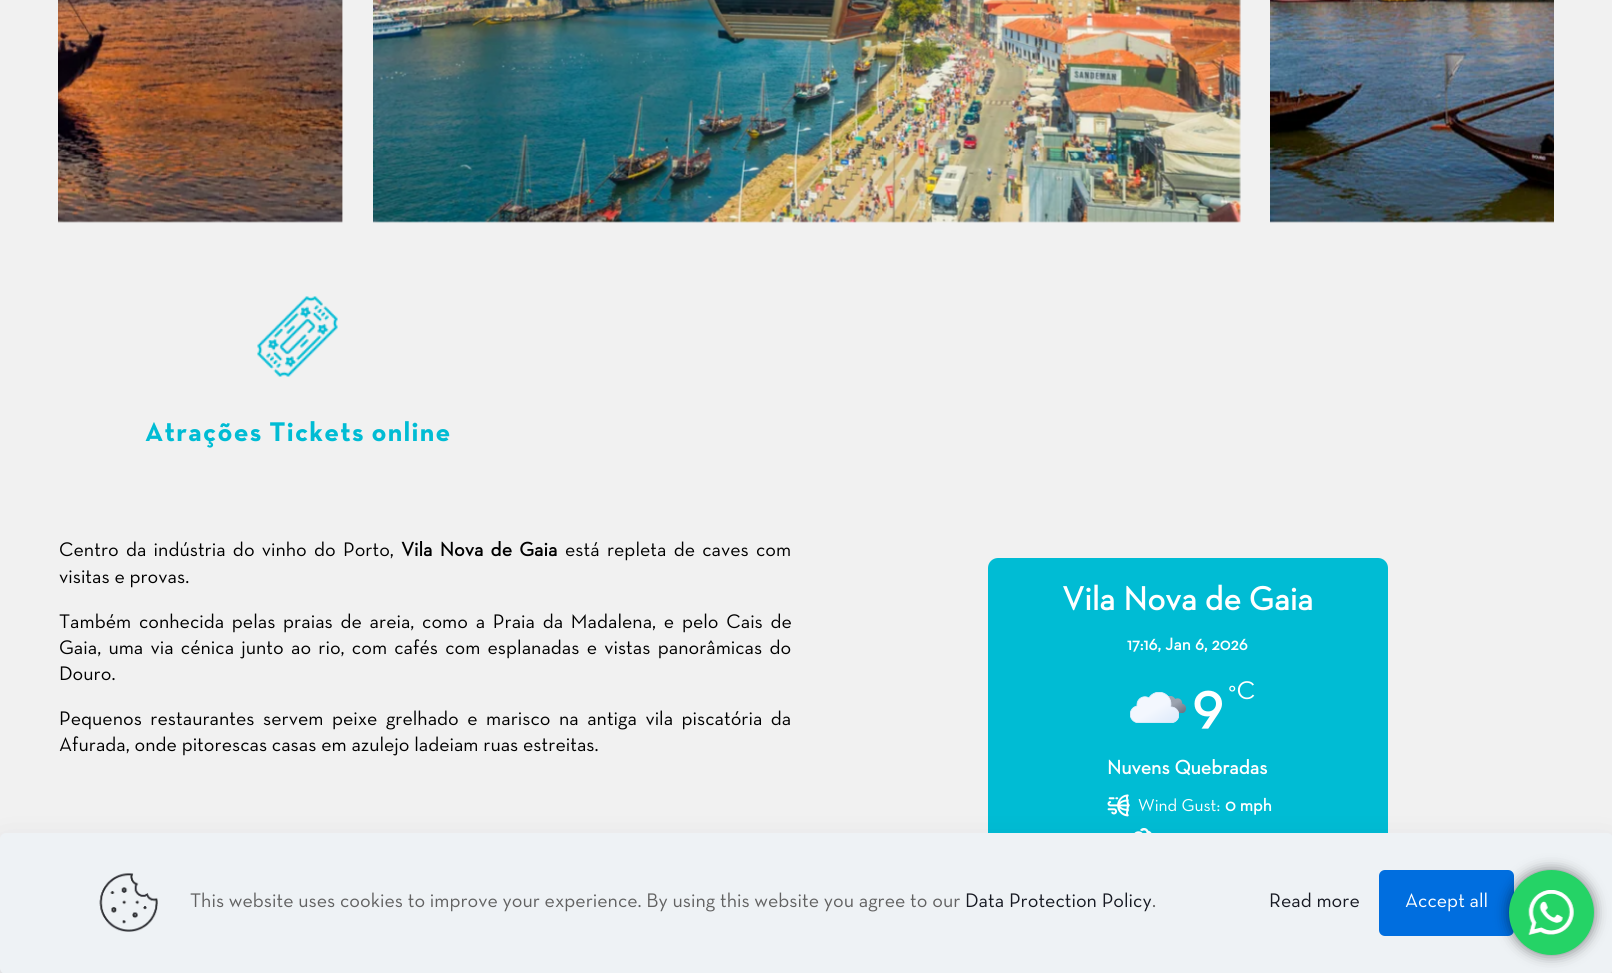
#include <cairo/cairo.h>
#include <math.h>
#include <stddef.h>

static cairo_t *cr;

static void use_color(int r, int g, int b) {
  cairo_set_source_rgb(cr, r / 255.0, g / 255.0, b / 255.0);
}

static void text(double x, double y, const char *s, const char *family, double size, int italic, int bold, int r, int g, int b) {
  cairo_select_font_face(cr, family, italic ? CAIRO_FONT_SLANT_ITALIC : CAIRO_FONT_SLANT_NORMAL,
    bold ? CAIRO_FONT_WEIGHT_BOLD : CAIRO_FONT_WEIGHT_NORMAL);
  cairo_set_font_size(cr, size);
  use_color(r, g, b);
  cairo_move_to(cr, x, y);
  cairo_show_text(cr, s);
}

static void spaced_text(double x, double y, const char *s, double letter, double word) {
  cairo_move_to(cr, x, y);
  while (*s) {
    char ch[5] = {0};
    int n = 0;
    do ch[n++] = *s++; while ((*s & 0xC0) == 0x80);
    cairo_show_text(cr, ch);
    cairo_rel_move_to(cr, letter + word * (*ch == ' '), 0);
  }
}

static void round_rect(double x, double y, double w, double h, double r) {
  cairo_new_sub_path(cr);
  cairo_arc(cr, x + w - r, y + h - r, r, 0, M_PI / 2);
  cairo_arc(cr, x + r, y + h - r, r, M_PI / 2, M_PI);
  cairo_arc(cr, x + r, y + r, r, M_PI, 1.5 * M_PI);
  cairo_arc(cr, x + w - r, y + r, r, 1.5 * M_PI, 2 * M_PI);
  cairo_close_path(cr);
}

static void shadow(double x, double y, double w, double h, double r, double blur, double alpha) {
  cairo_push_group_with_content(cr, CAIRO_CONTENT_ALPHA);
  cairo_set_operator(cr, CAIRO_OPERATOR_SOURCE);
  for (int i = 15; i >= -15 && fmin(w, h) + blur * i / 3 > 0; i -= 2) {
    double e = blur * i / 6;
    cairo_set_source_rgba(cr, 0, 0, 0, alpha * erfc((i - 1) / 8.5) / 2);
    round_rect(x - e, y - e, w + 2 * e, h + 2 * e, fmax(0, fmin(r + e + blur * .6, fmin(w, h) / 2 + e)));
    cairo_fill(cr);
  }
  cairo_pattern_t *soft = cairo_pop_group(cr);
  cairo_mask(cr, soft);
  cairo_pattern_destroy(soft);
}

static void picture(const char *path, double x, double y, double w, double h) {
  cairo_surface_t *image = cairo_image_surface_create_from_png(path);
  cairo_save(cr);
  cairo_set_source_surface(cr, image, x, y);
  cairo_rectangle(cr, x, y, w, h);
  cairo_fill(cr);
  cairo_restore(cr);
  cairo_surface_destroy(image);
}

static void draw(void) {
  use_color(241, 241, 241);
  cairo_paint(cr);
  picture("img_01.png", 58, 0, 285, 223);
  picture("img_02.png", 373, 0, 868, 223);
  picture("img_03.png", 1270, 0, 284, 223);
  picture("img_04.png", 257, 296, 81, 81);
  use_color(0, 188, 212);
  round_rect(988, 558, 400, 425, 10);
  cairo_fill(cr);
  picture("img_05.png", 1130, 692, 56, 31);
  picture("img_06.png", 1107, 794, 23, 23);
  picture("img_07.png", 1134, 828, 18, 5);
  use_color(1, 7, 39);
  shadow(0, 851, 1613, 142, 6, 19, 0.13);
  use_color(238, 242, 245);
  round_rect(0, 833, 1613, 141, 6);
  cairo_fill(cr);
  picture("img_08.png", 99, 873, 59, 59);
  use_color(0, 110, 223);
  round_rect(1379, 870, 135, 66, 6);
  cairo_fill(cr);
  use_color(0, 0, 0);
  shadow(1509, 870, 85, 85, 42.5, 7, 0.5);
  use_color(37, 211, 102);
  cairo_arc(cr, 1551.5, 912.5, 42.5, 0, 2 * M_PI);
  cairo_fill(cr);
  picture("img_09.png", 1528, 890, 46, 45);
  cairo_select_font_face(cr, "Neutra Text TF", CAIRO_FONT_SLANT_NORMAL, CAIRO_FONT_WEIGHT_BOLD);
  cairo_set_font_size(cr, 27.5);
  use_color(0, 188, 212);
  spaced_text(145, 441, "Atrações Tickets online", 1.25, 0);
  cairo_select_font_face(cr, "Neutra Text", CAIRO_FONT_SLANT_NORMAL, CAIRO_FONT_WEIGHT_NORMAL);
  cairo_set_font_size(cr, 20);
  use_color(0, 0, 0);
  spaced_text(59, 556, "Centro da indústria do vinho do Porto,", 0, 2.5);
  cairo_select_font_face(cr, "Neutra Text", CAIRO_FONT_SLANT_NORMAL, CAIRO_FONT_WEIGHT_BOLD);
  spaced_text(401, 556, "Vila Nova de Gaia", 0, 2.5);
  cairo_select_font_face(cr, "Neutra Text", CAIRO_FONT_SLANT_NORMAL, CAIRO_FONT_WEIGHT_NORMAL);
  spaced_text(565, 556, "está repleta de caves com", 0, 2.5);
  text(59, 583, "visitas e provas.", "Neutra Text", 20, 0, 0, 0, 0, 0);
  spaced_text(59, 628, "Também conhecida pelas praias de areia, como a Praia da Madalena, e pelo Cais de", 0, 3);
  spaced_text(59, 654, "Gaia, uma via cénica junto ao rio, com cafés com esplanadas e vistas panorâmicas do", 0, 2.5);
  text(59, 680, "Douro.", "Neutra Text", 20, 0, 0, 0, 0, 0);
  spaced_text(59, 725, "Pequenos restaurantes servem peixe grelhado e marisco na antiga vila piscatória da", 0, 3.75);
  text(59, 751, "Afurada, onde pitorescas casas em azulejo ladeiam ruas estreitas.", "Neutra Text", 20, 0, 0, 0, 0, 0);
  text(1062, 610, "Vila Nova de Gaia", "Neutra Text", 33.75, 0, 1, 255, 255, 255);
  text(1127, 650, "17:16, Jan 6, 2026", "Neutra Text", 17.5, 0, 1, 255, 255, 255);
  text(1228, 699, "°C", "Neutra Text", 26, 0, 0, 255, 255, 255);
  text(1192, 723, "9", "Neutra Text", 60, 0, 1, 255, 255, 255);
  text(1107, 774, "Nuvens Quebradas", "Neutra Text", 20, 0, 1, 255, 255, 255);
  text(1138, 811, "Wind Gust:", "Neutra Text", 17.5, 0, 0, 255, 255, 255);
  text(1225, 811, "0 mph", "Neutra Text", 17.5, 0, 1, 255, 255, 255);
  text(190, 907, "This website uses cookies to improve your experience. By using this website you agree to our", "Neutra Text", 20, 0, 0, 98, 98, 98);
  text(965, 907, "Data Protection Policy", "Neutra Text", 20, 0, 0, 22, 25, 34);
  text(1152, 907, ".", "Neutra Text", 20, 0, 0, 98, 98, 98);
  text(1269, 907, "Read more", "Neutra Text", 20, 0, 0, 22, 25, 34);
  text(1405, 907, "Accept all", "Neutra Text", 20, 0, 0, 255, 255, 255);
}

int main(void) {
  cairo_surface_t *surface = cairo_image_surface_create(CAIRO_FORMAT_RGB24, 1612, 973);
  cr = cairo_create(surface);
  cairo_font_options_t *options = cairo_font_options_create();
  cairo_font_options_set_hint_metrics(options, CAIRO_HINT_METRICS_OFF);
  cairo_font_options_set_hint_style(options, CAIRO_HINT_STYLE_NONE);
  cairo_set_font_options(cr, options);
  cairo_set_miter_limit(cr, 4);
  draw();
  cairo_surface_write_to_png(surface, "out.png");
  cairo_font_options_destroy(options);
  cairo_destroy(cr);
  cairo_surface_destroy(surface);
  return 0;
}
